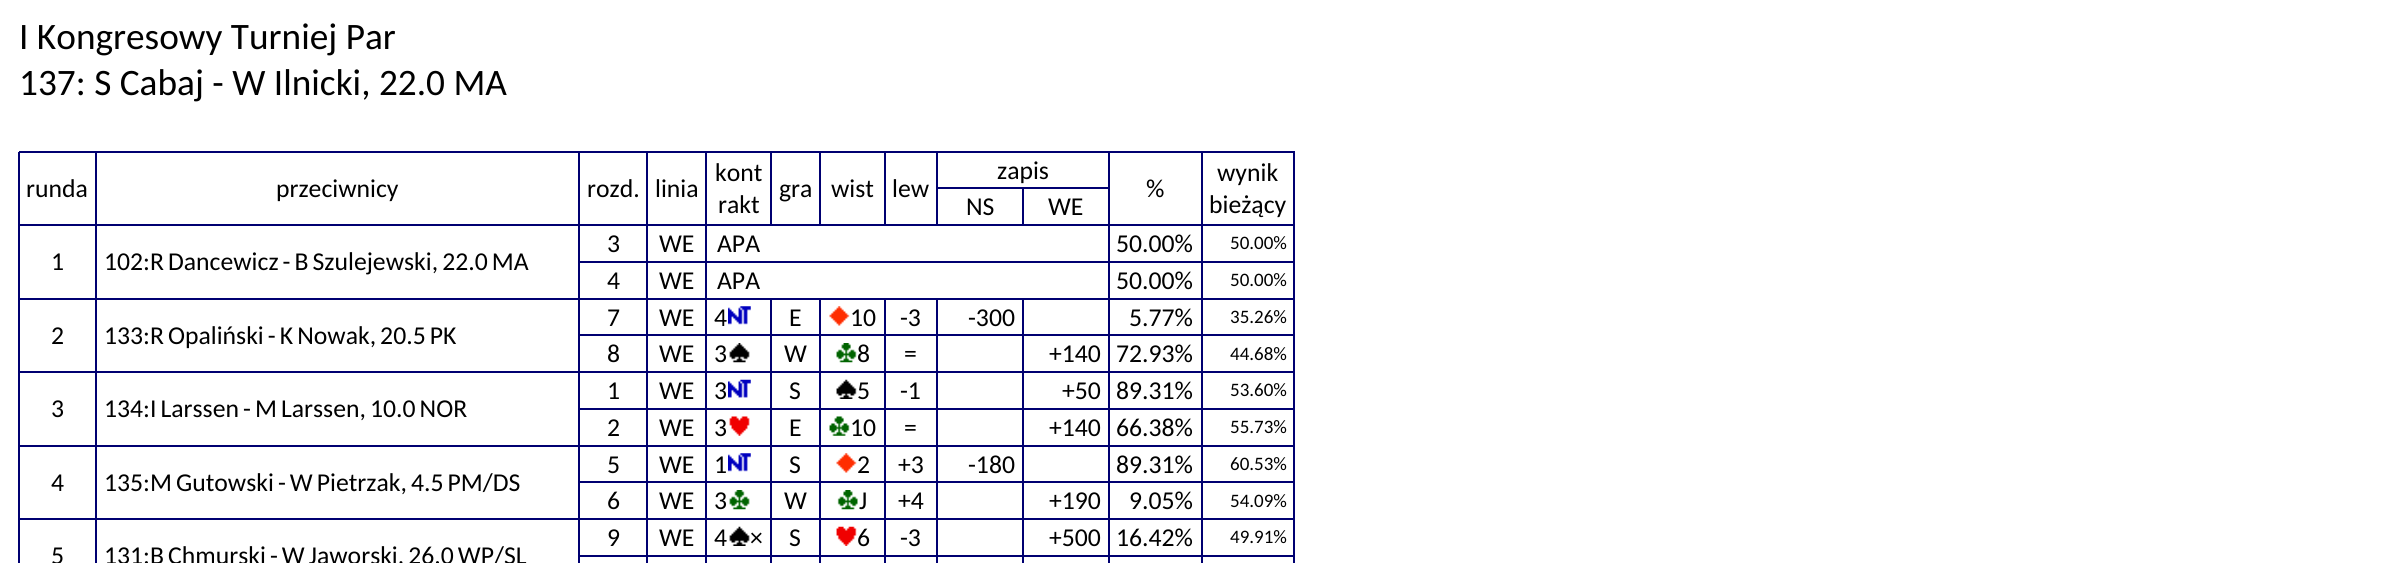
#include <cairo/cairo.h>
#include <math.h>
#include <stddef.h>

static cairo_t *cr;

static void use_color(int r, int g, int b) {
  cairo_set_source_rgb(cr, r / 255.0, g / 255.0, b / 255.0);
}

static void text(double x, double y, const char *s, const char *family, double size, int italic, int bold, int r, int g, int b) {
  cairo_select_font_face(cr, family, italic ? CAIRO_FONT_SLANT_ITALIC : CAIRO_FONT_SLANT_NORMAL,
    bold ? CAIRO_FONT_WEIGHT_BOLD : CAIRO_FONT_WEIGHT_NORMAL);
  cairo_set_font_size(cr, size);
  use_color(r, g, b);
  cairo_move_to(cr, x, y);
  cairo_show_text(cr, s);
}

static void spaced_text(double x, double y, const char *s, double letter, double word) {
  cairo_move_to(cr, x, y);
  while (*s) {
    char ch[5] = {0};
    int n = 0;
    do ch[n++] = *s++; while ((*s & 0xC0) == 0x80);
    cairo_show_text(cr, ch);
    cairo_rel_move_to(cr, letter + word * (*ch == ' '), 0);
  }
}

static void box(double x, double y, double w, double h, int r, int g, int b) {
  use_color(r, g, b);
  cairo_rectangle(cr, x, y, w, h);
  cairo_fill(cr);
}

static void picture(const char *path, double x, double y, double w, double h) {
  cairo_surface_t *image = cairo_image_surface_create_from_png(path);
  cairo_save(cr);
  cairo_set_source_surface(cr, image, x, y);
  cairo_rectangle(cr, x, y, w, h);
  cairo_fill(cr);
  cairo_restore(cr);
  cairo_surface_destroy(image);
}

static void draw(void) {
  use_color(255, 255, 255);
  cairo_paint(cr);
  box(19, 151, 1276, 2, 0, 0, 113);
  box(18, 152, 2, 111, 0, 0, 113);
  box(95, 152, 2, 147, 0, 0, 113);
  box(19, 224, 77, 2, 0, 0, 113);
  box(578, 152, 2, 147, 0, 0, 113);
  box(96, 224, 483, 2, 0, 0, 113);
  box(646, 152, 2, 147, 0, 0, 113);
  box(579, 224, 69, 2, 0, 0, 113);
  box(705, 152, 2, 147, 0, 0, 113);
  box(648, 224, 59, 2, 0, 0, 113);
  box(770, 152, 2, 74, 0, 0, 113);
  box(707, 224, 65, 2, 0, 0, 113);
  box(819, 152, 2, 74, 0, 0, 113);
  box(772, 224, 49, 2, 0, 0, 113);
  box(884, 152, 2, 74, 0, 0, 113);
  box(821, 224, 65, 2, 0, 0, 113);
  box(936, 152, 2, 74, 0, 0, 113);
  box(886, 224, 52, 2, 0, 0, 113);
  box(1108, 152, 2, 147, 0, 0, 113);
  box(938, 187, 172, 2, 0, 0, 113);
  box(1201, 152, 2, 147, 0, 0, 113);
  box(1110, 224, 92, 2, 0, 0, 113);
  box(1293, 152, 2, 147, 0, 0, 113);
  box(1202, 224, 93, 2, 0, 0, 113);
  box(1022, 189, 2, 37, 0, 0, 113);
  box(938, 224, 172, 2, 0, 0, 113);
  box(579, 261, 716, 2, 0, 0, 113);
  box(19, 298, 1276, 2, 0, 0, 113);
  box(18, 263, 2, 73, 0, 0, 113);
  box(646, 299, 2, 147, 0, 0, 113);
  box(578, 299, 2, 147, 0, 0, 113);
  box(579, 334, 69, 2, 0, 0, 113);
  box(705, 299, 2, 147, 0, 0, 113);
  box(648, 334, 59, 2, 0, 0, 113);
  box(770, 299, 2, 147, 0, 0, 113);
  box(707, 334, 65, 2, 0, 0, 113);
  picture("img_01.png", 728, 306, 23, 19);
  box(819, 299, 2, 147, 0, 0, 113);
  box(772, 334, 49, 2, 0, 0, 113);
  box(884, 299, 2, 147, 0, 0, 113);
  box(821, 334, 65, 2, 0, 0, 113);
  picture("img_02.png", 829, 306, 21, 20);
  box(936, 299, 2, 147, 0, 0, 113);
  box(886, 334, 52, 2, 0, 0, 113);
  box(1022, 299, 2, 147, 0, 0, 113);
  box(938, 334, 86, 2, 0, 0, 113);
  box(1108, 299, 2, 147, 0, 0, 113);
  box(1024, 334, 86, 2, 0, 0, 113);
  box(1201, 299, 2, 147, 0, 0, 113);
  box(1110, 334, 92, 2, 0, 0, 113);
  box(1293, 299, 2, 147, 0, 0, 113);
  box(1202, 334, 93, 2, 0, 0, 113);
  box(95, 299, 2, 147, 0, 0, 113);
  box(19, 371, 77, 2, 0, 0, 113);
  box(96, 371, 483, 2, 0, 0, 113);
  box(18, 336, 2, 74, 0, 0, 113);
  box(579, 371, 716, 2, 0, 0, 113);
  picture("img_03.png", 729, 343, 21, 20);
  picture("img_04.png", 836, 343, 21, 20);
  box(579, 408, 716, 2, 0, 0, 113);
  picture("img_05.png", 728, 379, 23, 19);
  picture("img_06.png", 836, 379, 21, 20);
  box(19, 445, 1276, 2, 0, 0, 113);
  box(18, 410, 2, 73, 0, 0, 113);
  picture("img_07.png", 729, 416, 21, 20);
  picture("img_08.png", 829, 416, 21, 20);
  box(646, 446, 2, 117, 0, 0, 113);
  box(578, 446, 2, 117, 0, 0, 113);
  box(579, 481, 69, 2, 0, 0, 113);
  box(705, 446, 2, 117, 0, 0, 113);
  box(648, 481, 59, 2, 0, 0, 113);
  box(770, 446, 2, 117, 0, 0, 113);
  box(707, 481, 65, 2, 0, 0, 113);
  picture("img_01.png", 728, 453, 23, 19);
  box(819, 446, 2, 117, 0, 0, 113);
  box(772, 481, 49, 2, 0, 0, 113);
  box(884, 446, 2, 117, 0, 0, 113);
  box(821, 481, 65, 2, 0, 0, 113);
  picture("img_02.png", 836, 453, 21, 20);
  box(936, 446, 2, 117, 0, 0, 113);
  box(886, 481, 52, 2, 0, 0, 113);
  box(1022, 446, 2, 117, 0, 0, 113);
  box(938, 481, 86, 2, 0, 0, 113);
  box(1108, 446, 2, 117, 0, 0, 113);
  box(1024, 481, 86, 2, 0, 0, 113);
  box(1201, 446, 2, 117, 0, 0, 113);
  box(1110, 481, 92, 2, 0, 0, 113);
  box(1293, 446, 2, 117, 0, 0, 113);
  box(1202, 481, 93, 2, 0, 0, 113);
  box(95, 446, 2, 117, 0, 0, 113);
  box(19, 518, 77, 2, 0, 0, 113);
  box(96, 518, 483, 2, 0, 0, 113);
  box(18, 483, 2, 80, 0, 0, 113);
  box(579, 518, 716, 2, 0, 0, 113);
  picture("img_09.png", 729, 490, 21, 20);
  picture("img_10.png", 837, 490, 21, 20);
  box(579, 555, 716, 2, 0, 0, 113);
  picture("img_11.png", 729, 526, 21, 20);
  picture("img_12.png", 836, 526, 21, 20);
  text(19, 49, "I Kongresowy Turniej Par", "Carlito", 37.3, 0, 0, 0, 0, 0);
  text(19, 95, "137: S Cabaj - W Ilnicki, 22.0 MA", "Carlito", 37.3, 0, 0, 0, 0, 0);
  text(26, 197, "runda", "Carlito", 25.7, 0, 0, 0, 0, 0);
  text(276, 197, "przeciwnicy", "Carlito", 25.7, 0, 0, 0, 0, 0);
  text(587, 197, "rozd.", "Carlito", 25.7, 0, 0, 0, 0, 0);
  text(655, 197, "linia", "Carlito", 25.7, 0, 0, 0, 0, 0);
  text(715, 181, "kont", "Carlito", 25.7, 0, 0, 0, 0, 0);
  text(718, 213, "rakt", "Carlito", 25.7, 0, 0, 0, 0, 0);
  text(779, 197, "gra", "Carlito", 25.7, 0, 0, 0, 0, 0);
  text(831, 197, "wist", "Carlito", 25.7, 0, 0, 0, 0, 0);
  text(892, 197, "lew", "Carlito", 25.7, 0, 0, 0, 0, 0);
  text(997, 179, "zapis", "Carlito", 25.7, 0, 0, 0, 0, 0);
  text(1146, 197, "%", "Carlito", 25.7, 0, 0, 0, 0, 0);
  text(1217, 181, "wynik", "Carlito", 25.7, 0, 0, 0, 0, 0);
  text(1209, 213, "bieżący", "Carlito", 25.7, 0, 0, 0, 0, 0);
  text(966, 215, "NS", "Carlito", 25.7, 0, 0, 0, 0, 0);
  text(1048, 215, "WE", "Carlito", 25.7, 0, 0, 0, 0, 0);
  text(607, 252, "3", "Carlito", 25.7, 0, 0, 0, 0, 0);
  text(659, 252, "WE", "Carlito", 25.7, 0, 0, 0, 0, 0);
  text(717, 252, "APA", "Carlito", 25.7, 0, 0, 0, 0, 0);
  text(1116, 252, "50.00%", "Carlito", 25.7, 0, 0, 0, 0, 0);
  text(1230, 249, "50.00%", "Carlito", 19, 0, 0, 0, 0, 0);
  text(51, 270, "1", "Carlito", 25.7, 0, 0, 0, 0, 0);
  spaced_text(104, 270, "102:R Dancewicz - B Szulejewski, 22.0 MA", 0, -1.75);
  text(607, 289, "4", "Carlito", 25.7, 0, 0, 0, 0, 0);
  text(659, 289, "WE", "Carlito", 25.7, 0, 0, 0, 0, 0);
  text(717, 289, "APA", "Carlito", 25.7, 0, 0, 0, 0, 0);
  text(1116, 289, "50.00%", "Carlito", 25.7, 0, 0, 0, 0, 0);
  text(1230, 286, "50.00%", "Carlito", 19, 0, 0, 0, 0, 0);
  text(607, 326, "7", "Carlito", 25.7, 0, 0, 0, 0, 0);
  text(659, 326, "WE", "Carlito", 25.7, 0, 0, 0, 0, 0);
  text(714, 326, "4", "Carlito", 25.7, 0, 0, 0, 0, 0);
  text(789, 326, "E", "Carlito", 25.7, 0, 0, 0, 0, 0);
  text(850, 326, "10", "Carlito", 25.7, 0, 0, 0, 0, 0);
  text(900, 326, "-3", "Carlito", 25.7, 0, 0, 0, 0, 0);
  text(968, 326, "-300", "Carlito", 25.7, 0, 0, 0, 0, 0);
  text(1129, 326, "5.77%", "Carlito", 25.7, 0, 0, 0, 0, 0);
  text(1230, 323, "35.26%", "Carlito", 19, 0, 0, 0, 0, 0);
  text(51, 344, "2", "Carlito", 25.7, 0, 0, 0, 0, 0);
  spaced_text(104, 344, "133:R Opaliński - K Nowak, 20.5 PK", 0, -1.75);
  text(607, 362, "8", "Carlito", 25.7, 0, 0, 0, 0, 0);
  text(659, 362, "WE", "Carlito", 25.7, 0, 0, 0, 0, 0);
  text(714, 362, "3", "Carlito", 25.7, 0, 0, 0, 0, 0);
  text(784, 362, "W", "Carlito", 25.7, 0, 0, 0, 0, 0);
  text(857, 362, "8", "Carlito", 25.7, 0, 0, 0, 0, 0);
  text(904, 362, "=", "Carlito", 25.7, 0, 0, 0, 0, 0);
  text(1049, 362, "+140", "Carlito", 25.7, 0, 0, 0, 0, 0);
  text(1116, 362, "72.93%", "Carlito", 25.7, 0, 0, 0, 0, 0);
  text(1230, 360, "44.68%", "Carlito", 19, 0, 0, 0, 0, 0);
  text(607, 399, "1", "Carlito", 25.7, 0, 0, 0, 0, 0);
  text(659, 399, "WE", "Carlito", 25.7, 0, 0, 0, 0, 0);
  text(714, 399, "3", "Carlito", 25.7, 0, 0, 0, 0, 0);
  text(789, 399, "S", "Carlito", 25.7, 0, 0, 0, 0, 0);
  text(857, 399, "5", "Carlito", 25.7, 0, 0, 0, 0, 0);
  text(900, 399, "-1", "Carlito", 25.7, 0, 0, 0, 0, 0);
  text(1062, 399, "+50", "Carlito", 25.7, 0, 0, 0, 0, 0);
  text(1116, 399, "89.31%", "Carlito", 25.7, 0, 0, 0, 0, 0);
  text(1230, 396, "53.60%", "Carlito", 19, 0, 0, 0, 0, 0);
  text(51, 417, "3", "Carlito", 25.7, 0, 0, 0, 0, 0);
  spaced_text(104, 417, "134:I Larssen - M Larssen, 10.0 NOR", 0, -1.75);
  text(607, 436, "2", "Carlito", 25.7, 0, 0, 0, 0, 0);
  text(659, 436, "WE", "Carlito", 25.7, 0, 0, 0, 0, 0);
  text(714, 436, "3", "Carlito", 25.7, 0, 0, 0, 0, 0);
  text(789, 436, "E", "Carlito", 25.7, 0, 0, 0, 0, 0);
  text(850, 436, "10", "Carlito", 25.7, 0, 0, 0, 0, 0);
  text(904, 436, "=", "Carlito", 25.7, 0, 0, 0, 0, 0);
  text(1049, 436, "+140", "Carlito", 25.7, 0, 0, 0, 0, 0);
  text(1116, 436, "66.38%", "Carlito", 25.7, 0, 0, 0, 0, 0);
  text(1230, 433, "55.73%", "Carlito", 19, 0, 0, 0, 0, 0);
  text(607, 473, "5", "Carlito", 25.7, 0, 0, 0, 0, 0);
  text(659, 473, "WE", "Carlito", 25.7, 0, 0, 0, 0, 0);
  text(714, 473, "1", "Carlito", 25.7, 0, 0, 0, 0, 0);
  text(789, 473, "S", "Carlito", 25.7, 0, 0, 0, 0, 0);
  text(857, 473, "2", "Carlito", 25.7, 0, 0, 0, 0, 0);
  text(898, 473, "+3", "Carlito", 25.7, 0, 0, 0, 0, 0);
  text(968, 473, "-180", "Carlito", 25.7, 0, 0, 0, 0, 0);
  text(1116, 473, "89.31%", "Carlito", 25.7, 0, 0, 0, 0, 0);
  text(1230, 470, "60.53%", "Carlito", 19, 0, 0, 0, 0, 0);
  text(51, 491, "4", "Carlito", 25.7, 0, 0, 0, 0, 0);
  spaced_text(104, 491, "135:M Gutowski - W Pietrzak, 4.5 PM/DS", 0, -1.75);
  text(607, 509, "6", "Carlito", 25.7, 0, 0, 0, 0, 0);
  text(659, 509, "WE", "Carlito", 25.7, 0, 0, 0, 0, 0);
  text(714, 509, "3", "Carlito", 25.7, 0, 0, 0, 0, 0);
  text(784, 509, "W", "Carlito", 25.7, 0, 0, 0, 0, 0);
  text(859, 509, "J", "Carlito", 25.7, 0, 0, 0, 0, 0);
  text(898, 509, "+4", "Carlito", 25.7, 0, 0, 0, 0, 0);
  text(1049, 509, "+190", "Carlito", 25.7, 0, 0, 0, 0, 0);
  text(1129, 509, "9.05%", "Carlito", 25.7, 0, 0, 0, 0, 0);
  text(1230, 507, "54.09%", "Carlito", 19, 0, 0, 0, 0, 0);
  text(607, 546, "9", "Carlito", 25.7, 0, 0, 0, 0, 0);
  text(659, 546, "WE", "Carlito", 25.7, 0, 0, 0, 0, 0);
  text(714, 546, "4", "Carlito", 25.7, 0, 0, 0, 0, 0);
  text(750, 546, "×", "Carlito", 25.7, 0, 0, 0, 0, 0);
  text(789, 546, "S", "Carlito", 25.7, 0, 0, 0, 0, 0);
  text(857, 546, "6", "Carlito", 25.7, 0, 0, 0, 0, 0);
  text(900, 546, "-3", "Carlito", 25.7, 0, 0, 0, 0, 0);
  text(1049, 546, "+500", "Carlito", 25.7, 0, 0, 0, 0, 0);
  text(1116, 546, "16.42%", "Carlito", 25.7, 0, 0, 0, 0, 0);
  text(1230, 543, "49.91%", "Carlito", 19, 0, 0, 0, 0, 0);
  text(51, 564, "5", "Carlito", 25.7, 0, 0, 0, 0, 0);
  spaced_text(104, 564, "131:B Chmurski - W Jaworski, 26.0 WP/SL", 0, -1.75);
}

int main(void) {
  cairo_surface_t *surface = cairo_image_surface_create(CAIRO_FORMAT_RGB24, 2398, 563);
  cr = cairo_create(surface);
  cairo_font_options_t *options = cairo_font_options_create();
  cairo_font_options_set_hint_metrics(options, CAIRO_HINT_METRICS_OFF);
  cairo_font_options_set_hint_style(options, CAIRO_HINT_STYLE_NONE);
  cairo_set_font_options(cr, options);
  cairo_set_miter_limit(cr, 4);
  draw();
  cairo_surface_write_to_png(surface, "out.png");
  cairo_font_options_destroy(options);
  cairo_destroy(cr);
  cairo_surface_destroy(surface);
  return 0;
}
